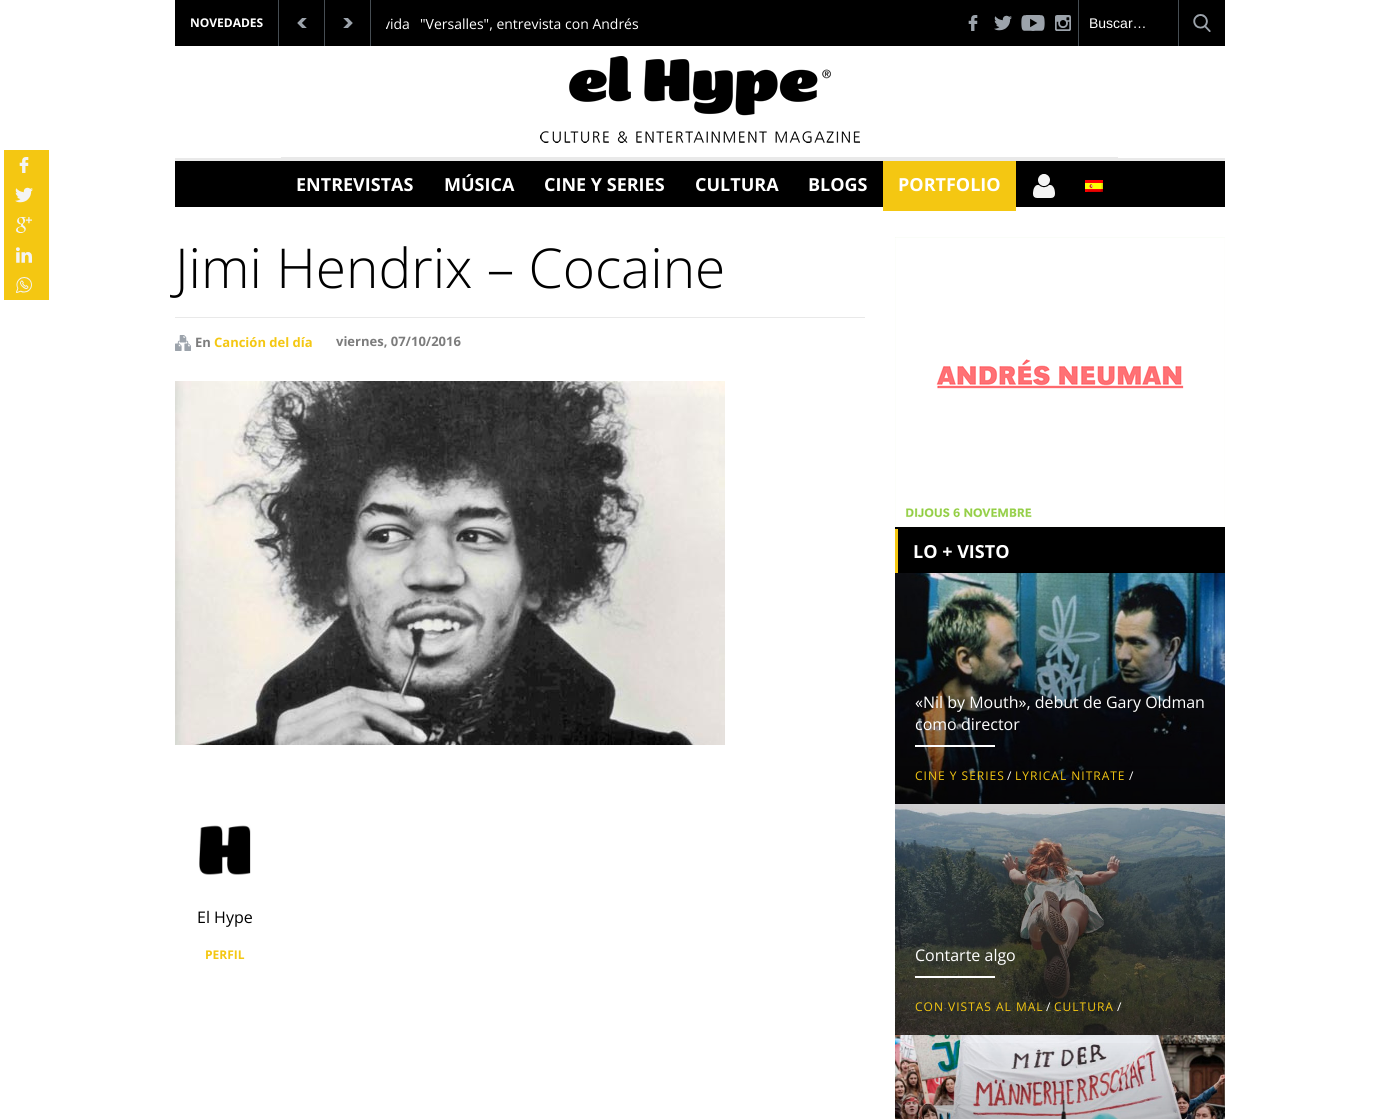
#include <cairo/cairo.h>
#include <math.h>
#include <stddef.h>

static cairo_t *cr;

static void use_color(int r, int g, int b) {
  cairo_set_source_rgb(cr, r / 255.0, g / 255.0, b / 255.0);
}

static void text(double x, double y, const char *s, const char *family, double size, int italic, int bold, int r, int g, int b) {
  cairo_select_font_face(cr, family, italic ? CAIRO_FONT_SLANT_ITALIC : CAIRO_FONT_SLANT_NORMAL,
    bold ? CAIRO_FONT_WEIGHT_BOLD : CAIRO_FONT_WEIGHT_NORMAL);
  cairo_set_font_size(cr, size);
  use_color(r, g, b);
  cairo_move_to(cr, x, y);
  cairo_show_text(cr, s);
}

static void spaced_text(double x, double y, const char *s, double letter, double word) {
  cairo_move_to(cr, x, y);
  while (*s) {
    char ch[5] = {0};
    int n = 0;
    do ch[n++] = *s++; while ((*s & 0xC0) == 0x80);
    cairo_show_text(cr, ch);
    cairo_rel_move_to(cr, letter + word * (*ch == ' '), 0);
  }
}

static void box(double x, double y, double w, double h, int r, int g, int b) {
  use_color(r, g, b);
  cairo_rectangle(cr, x, y, w, h);
  cairo_fill(cr);
}

static void picture(const char *path, double x, double y, double w, double h) {
  cairo_surface_t *image = cairo_image_surface_create_from_png(path);
  cairo_save(cr);
  cairo_set_source_surface(cr, image, x, y);
  cairo_rectangle(cr, x, y, w, h);
  cairo_fill(cr);
  cairo_restore(cr);
  cairo_surface_destroy(image);
}

static void draw(void) {
  cairo_pattern_t *gradient;
  use_color(255, 255, 255);
  cairo_paint(cr);
  box(4, 150, 45, 150, 244, 199, 18);
  picture("img_01.png", 19, 157, 10, 16);
  picture("img_02.png", 15, 187, 18, 16);
  picture("img_03.png", 16, 217, 16, 16);
  picture("img_04.png", 16, 247, 16, 16);
  picture("img_05.png", 16, 277, 16, 16);
  box(175, 0, 1050, 46, 0, 0, 0);
  box(278, 0, 1, 46, 70, 77, 83);
  box(324, 0, 1, 46, 70, 77, 83);
  picture("img_06.png", 297, 18, 10, 10);
  box(370, 0, 1, 46, 70, 77, 83);
  picture("img_07.png", 343, 18, 10, 10);
  box(1078, 0, 1, 46, 70, 77, 83);
  picture("img_08.png", 968, 15, 10, 16);
  picture("img_09.png", 994, 15, 18, 16);
  picture("img_10.png", 1021, 15, 24, 16);
  picture("img_11.png", 1055, 15, 16, 16);
  box(1178, 0, 1, 46, 70, 77, 83);
  picture("img_12.png", 1193, 14, 18, 18);
  picture("img_13.png", 540, 56, 320, 87);
  box(175, 161, 1050, 46, 0, 0, 0);
  box(175, 158, 1050, 3, 233, 233, 233);
  box(281, 157, 837, 1, 233, 233, 233);
  box(883, 161, 133, 50, 244, 199, 18);
  picture("img_14.png", 1033, 174, 22, 24);
  picture("img_15.png", 1085, 180, 18, 12);
  box(175, 317, 690, 1, 233, 233, 233);
  picture("img_16.png", 175, 335, 16, 16);
  picture("img_17.png", 175, 381, 550, 364);
  picture("img_18.png", 199, 825, 52, 50);
  box(895, 527, 330, 592, 0, 0, 0);
  picture("img_19.png", 895, 237, 330, 290);
  box(895, 529, 3, 44, 244, 199, 18);
  picture("img_20.png", 895, 573, 330, 231);
  gradient = cairo_pattern_create_linear(1060, 573, 1060, 804);
  cairo_pattern_add_color_stop_rgba(gradient, 0, 0, 0, 0, 0);
  cairo_pattern_add_color_stop_rgba(gradient, 1, 0, 0, 0, 0.6);
  cairo_set_source(cr, gradient);
  cairo_pattern_destroy(gradient);
  cairo_rectangle(cr, 895, 581, 330, 223);
  cairo_fill(cr);
  box(915, 745, 80, 2, 255, 255, 255);
  picture("img_21.png", 895, 804, 330, 231);
  box(915, 976, 80, 2, 255, 255, 255);
  picture("img_22.png", 895, 1035, 330, 84);
  gradient = cairo_pattern_create_linear(1060, 1035, 1060, 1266);
  cairo_pattern_add_color_stop_rgba(gradient, 0, 0, 0, 0, 0);
  cairo_pattern_add_color_stop_rgba(gradient, 1, 0, 0, 0, 0.6);
  cairo_set_source(cr, gradient);
  cairo_pattern_destroy(gradient);
  cairo_rectangle(cr, 895, 1043, 330, 76);
  cairo_fill(cr);
  text(190, 27, "NOVEDADES", "Open Sans", 12, 0, 1, 255, 255, 255);
  cairo_save(cr);
  cairo_rectangle(cr, 386, 0, 253, 46);
  cairo_clip(cr);
  text(383, 29, "vida", "Open Sans", 14, 0, 0, 255, 255, 255);
  cairo_restore(cr);
  text(420, 29, "\"Versalles\", entrevista con Andrés", "Open Sans", 14, 0, 0, 255, 255, 255);
  text(1089, 28, "Buscar…", "Liberation Sans", 14, 0, 0, 255, 255, 255);
  text(296, 191, "ENTREVISTAS", "Open Sans", 18, 0, 1, 255, 255, 255);
  text(444, 191, "MÚSICA", "Open Sans", 18, 0, 1, 255, 255, 255);
  text(544, 191, "CINE Y SERIES", "Open Sans", 18, 0, 1, 255, 255, 255);
  text(695, 191, "CULTURA", "Open Sans", 18, 0, 1, 255, 255, 255);
  text(808, 191, "BLOGS", "Open Sans", 18, 0, 1, 255, 255, 255);
  text(898, 191, "PORTFOLIO", "Open Sans", 18, 0, 1, 255, 255, 255);
  text(175, 288, "Jimi Hendrix – Cocaine", "Open Sans Light", 55, 0, 0, 0, 0, 0);
  text(195, 347, "En", "Open Sans", 13, 0, 1, 124, 124, 124);
  text(214, 347, "Canción del día", "Open Sans", 13, 0, 1, 244, 199, 18);
  text(336, 346, "viernes, 07/10/2016", "Open Sans", 13, 0, 1, 124, 124, 124);
  text(197, 923, "El Hype", "Open Sans", 16, 0, 0, 0, 0, 0);
  text(205, 959, "PERFIL", "Open Sans", 12, 0, 1, 244, 199, 18);
  text(913, 558, "LO + VISTO", "Open Sans", 18, 0, 1, 255, 255, 255);
  text(915, 708, "«Nil by Mouth», debut de Gary Oldman", "Open Sans", 16, 0, 0, 255, 255, 255);
  text(915, 730, "como director", "Open Sans", 16, 0, 0, 255, 255, 255);
  cairo_set_font_size(cr, 12);
  use_color(244, 199, 18);
  spaced_text(915, 780, "CINE Y SERIES", 1, 0);
  text(1007, 780, "/", "Open Sans", 12, 0, 0, 255, 255, 255);
  use_color(244, 199, 18);
  spaced_text(1015, 780, "LYRICAL NITRATE", 1, 0);
  text(1129, 780, "/", "Open Sans", 12, 0, 0, 255, 255, 255);
  text(915, 961, "Contarte algo", "Open Sans", 16, 0, 0, 255, 255, 255);
  cairo_set_font_size(cr, 12);
  use_color(244, 199, 18);
  spaced_text(915, 1011, "CON VISTAS AL MAL", 1, 0);
  text(1046, 1011, "/", "Open Sans", 12, 0, 0, 255, 255, 255);
  use_color(244, 199, 18);
  spaced_text(1054, 1011, "CULTURA", 1, 0);
  text(1117, 1011, "/", "Open Sans", 12, 0, 0, 255, 255, 255);
}

int main(void) {
  cairo_surface_t *surface = cairo_image_surface_create(CAIRO_FORMAT_RGB24, 1399, 1119);
  cr = cairo_create(surface);
  cairo_font_options_t *options = cairo_font_options_create();
  cairo_font_options_set_hint_metrics(options, CAIRO_HINT_METRICS_OFF);
  cairo_font_options_set_hint_style(options, CAIRO_HINT_STYLE_NONE);
  cairo_set_font_options(cr, options);
  cairo_set_miter_limit(cr, 4);
  draw();
  cairo_surface_write_to_png(surface, "out.png");
  cairo_font_options_destroy(options);
  cairo_destroy(cr);
  cairo_surface_destroy(surface);
  return 0;
}
